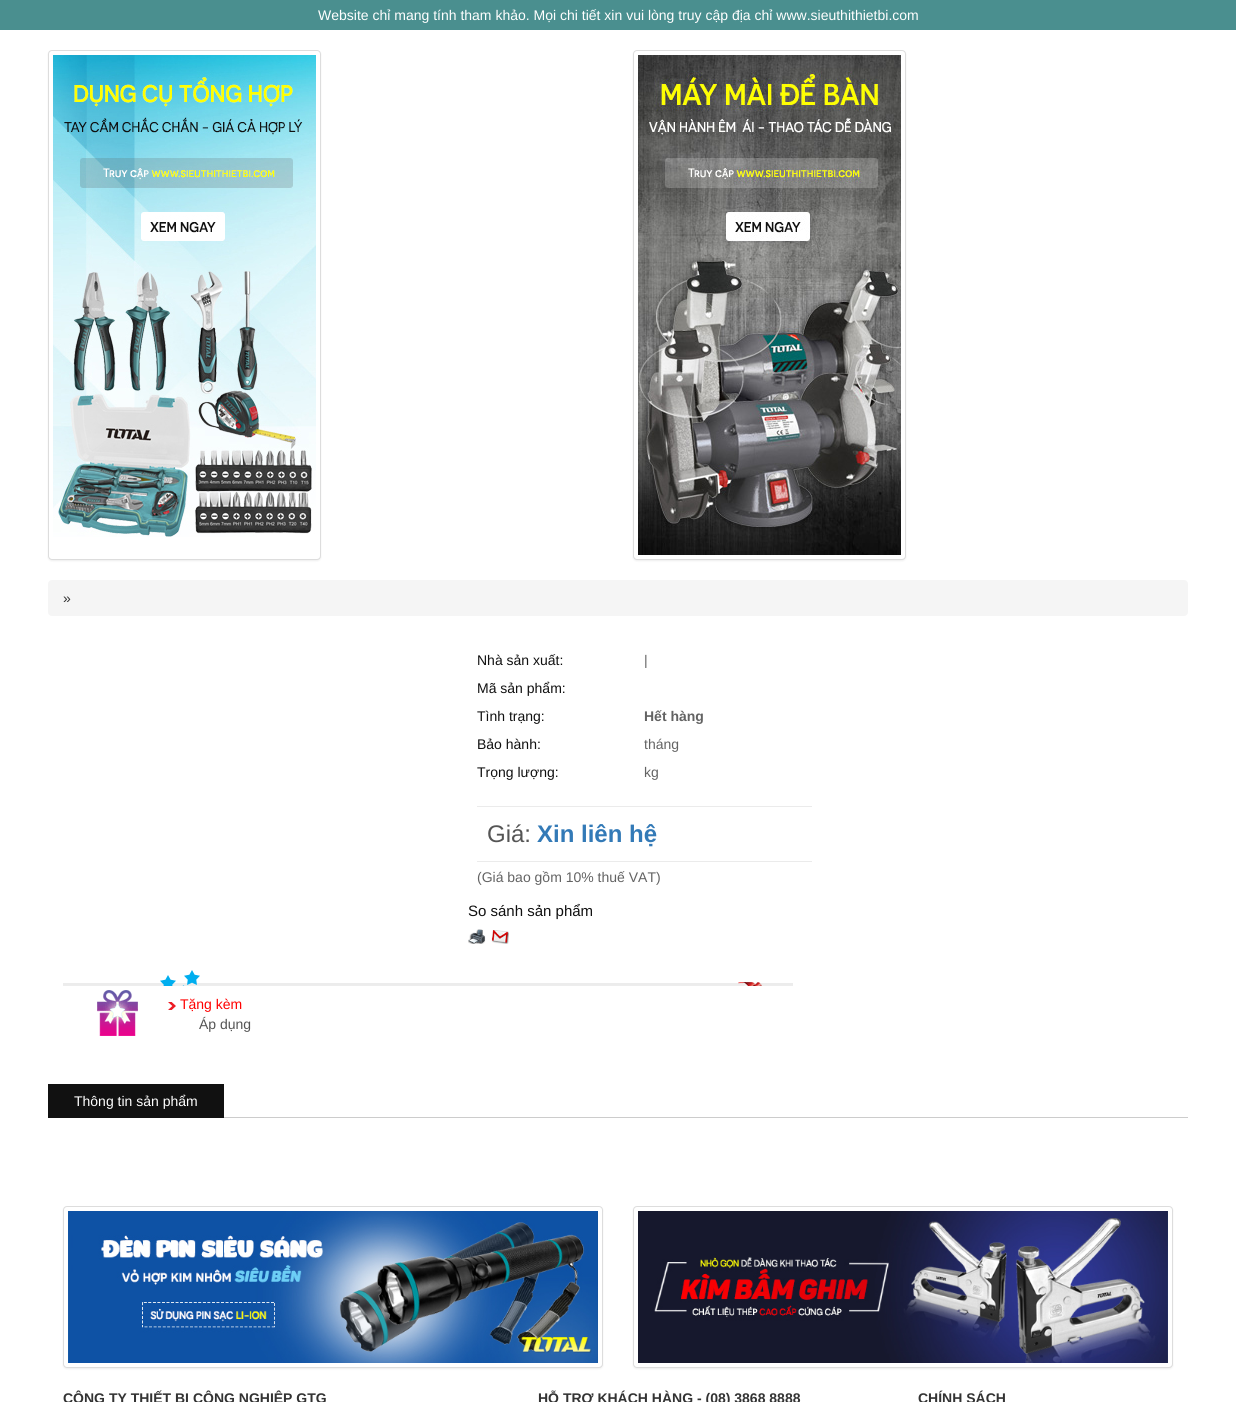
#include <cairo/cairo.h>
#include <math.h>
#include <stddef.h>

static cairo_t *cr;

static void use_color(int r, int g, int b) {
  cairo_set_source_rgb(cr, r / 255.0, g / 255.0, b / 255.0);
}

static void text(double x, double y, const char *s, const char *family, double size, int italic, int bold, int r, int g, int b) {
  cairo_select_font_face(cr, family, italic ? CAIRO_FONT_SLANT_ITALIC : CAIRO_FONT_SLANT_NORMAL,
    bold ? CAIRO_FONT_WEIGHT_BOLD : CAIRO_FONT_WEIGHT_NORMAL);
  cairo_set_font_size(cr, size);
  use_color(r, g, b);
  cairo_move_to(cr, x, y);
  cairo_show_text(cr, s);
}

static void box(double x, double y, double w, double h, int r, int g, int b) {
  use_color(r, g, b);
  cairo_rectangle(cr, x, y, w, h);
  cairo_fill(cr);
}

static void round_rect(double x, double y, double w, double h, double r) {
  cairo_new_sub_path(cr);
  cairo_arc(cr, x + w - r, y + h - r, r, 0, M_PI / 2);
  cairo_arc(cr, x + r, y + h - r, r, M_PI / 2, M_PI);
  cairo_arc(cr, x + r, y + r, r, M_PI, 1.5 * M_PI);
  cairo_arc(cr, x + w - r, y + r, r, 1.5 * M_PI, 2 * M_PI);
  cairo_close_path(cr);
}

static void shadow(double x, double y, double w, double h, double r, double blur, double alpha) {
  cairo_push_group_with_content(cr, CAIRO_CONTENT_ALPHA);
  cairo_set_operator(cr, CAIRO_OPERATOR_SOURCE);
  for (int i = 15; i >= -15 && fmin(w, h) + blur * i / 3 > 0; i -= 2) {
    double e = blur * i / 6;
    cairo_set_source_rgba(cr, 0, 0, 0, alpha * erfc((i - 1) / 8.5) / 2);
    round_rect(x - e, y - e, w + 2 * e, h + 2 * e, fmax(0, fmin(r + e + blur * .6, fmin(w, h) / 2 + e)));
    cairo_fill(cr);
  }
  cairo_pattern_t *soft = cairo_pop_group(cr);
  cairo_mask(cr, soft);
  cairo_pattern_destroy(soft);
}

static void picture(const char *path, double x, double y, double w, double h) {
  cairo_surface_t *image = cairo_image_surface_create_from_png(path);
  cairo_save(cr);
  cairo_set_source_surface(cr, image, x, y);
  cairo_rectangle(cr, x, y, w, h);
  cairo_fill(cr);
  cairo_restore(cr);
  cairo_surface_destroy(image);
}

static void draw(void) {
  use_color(255, 255, 255);
  cairo_paint(cr);
  box(0, 0, 1236, 30, 74, 143, 143);
  use_color(0, 0, 0);
  shadow(48, 51, 273, 510, 4, 1, 0.07);
  use_color(255, 255, 255);
  round_rect(48.5, 50.5, 272, 509, 3.5);
  cairo_fill_preserve(cr);
  use_color(221, 221, 221);
  cairo_set_line_width(cr, 1);
  cairo_stroke(cr);
  picture("img_01.png", 53, 55, 263, 482);
  use_color(0, 0, 0);
  shadow(633, 51, 273, 510, 4, 1, 0.07);
  use_color(255, 255, 255);
  round_rect(633.5, 50.5, 272, 509, 3.5);
  cairo_fill_preserve(cr);
  use_color(221, 221, 221);
  cairo_stroke(cr);
  picture("img_02.png", 638, 55, 263, 500);
  use_color(245, 245, 245);
  round_rect(48, 580, 1140, 36, 4);
  cairo_fill(cr);
  box(477, 806, 335, 1, 235, 235, 235);
  box(477, 861, 335, 1, 235, 235, 235);
  picture("img_03.png", 468, 929, 18, 15);
  picture("img_04.png", 491, 930, 18, 14);
  picture("img_05.png", 63, 970, 730, 16);
  picture("img_06.png", 97, 990, 41, 46);
  picture("img_07.png", 168, 1002, 8, 8);
  box(224, 1117, 964, 1, 204, 204, 204);
  box(48, 1084, 176, 34, 17, 17, 17);
  use_color(0, 0, 0);
  shadow(63, 1207, 540, 162, 4, 1, 0.07);
  use_color(255, 255, 255);
  round_rect(63.5, 1206.5, 539, 161, 3.5);
  cairo_fill_preserve(cr);
  use_color(221, 221, 221);
  cairo_stroke(cr);
  picture("img_08.png", 68, 1211, 530, 152);
  use_color(0, 0, 0);
  shadow(633, 1207, 540, 162, 4, 1, 0.07);
  use_color(255, 255, 255);
  round_rect(633.5, 1206.5, 539, 161, 3.5);
  cairo_fill_preserve(cr);
  use_color(221, 221, 221);
  cairo_stroke(cr);
  picture("img_09.png", 638, 1211, 530, 152);
  text(318, 20, "Website chỉ mang tính tham khảo. Mọi chi tiết xin vui lòng truy cập địa chỉ www.sieuthithietbi.com", "Liberation Sans", 14, 0, 0, 255, 255, 255);
  text(63, 603, "»", "Liberation Sans", 14, 0, 0, 51, 51, 51);
  text(477, 665, "Nhà sản xuất:", "Liberation Sans", 14, 0, 0, 17, 17, 17);
  text(644, 665, "|", "Liberation Sans", 14, 0, 0, 99, 99, 99);
  text(477, 693, "Mã sản phẩm:", "Liberation Sans", 14, 0, 0, 17, 17, 17);
  text(477, 721, "Tình trạng:", "Liberation Sans", 14, 0, 0, 17, 17, 17);
  text(644, 721, "Hết hàng", "Liberation Sans", 14, 0, 1, 99, 99, 99);
  text(477, 749, "Bảo hành:", "Liberation Sans", 14, 0, 0, 17, 17, 17);
  text(644, 749, "tháng", "Liberation Sans", 14, 0, 0, 99, 99, 99);
  text(477, 777, "Trọng lượng:", "Liberation Sans", 14, 0, 0, 17, 17, 17);
  text(644, 777, "kg", "Liberation Sans", 14, 0, 0, 99, 99, 99);
  text(487, 842, "Giá:", "Liberation Sans", 24, 0, 0, 85, 85, 85);
  text(537, 842, "Xin liên hệ", "Liberation Sans", 24, 0, 1, 51, 122, 183);
  text(477, 882, "(Giá bao gồm 10% thuế VAT)", "Liberation Sans", 14, 0, 0, 99, 99, 99);
  text(468, 916, "So sánh sản phẩm", "Liberation Sans", 15, 0, 0, 17, 17, 17);
  text(180, 1009, "Tặng kèm", "Liberation Sans", 14, 0, 0, 255, 0, 0);
  text(199, 1029, "Áp dụng", "Liberation Sans", 14, 0, 0, 85, 85, 85);
  text(74, 1106, "Thông tin sản phẩm", "Liberation Sans", 14, 0, 0, 255, 255, 255);
  text(63, 1403, "CÔNG TY THIẾT BỊ CÔNG NGHIỆP GTG", "Liberation Sans", 14, 0, 1, 51, 51, 51);
  text(538, 1403, "HỖ TRỢ KHÁCH HÀNG - (08) 3868 8888", "Liberation Sans", 14, 0, 1, 51, 51, 51);
  text(918, 1403, "CHÍNH SÁCH", "Liberation Sans", 14, 0, 1, 51, 51, 51);
}

int main(void) {
  cairo_surface_t *surface = cairo_image_surface_create(CAIRO_FORMAT_RGB24, 1236, 1402);
  cr = cairo_create(surface);
  cairo_font_options_t *options = cairo_font_options_create();
  cairo_font_options_set_hint_metrics(options, CAIRO_HINT_METRICS_OFF);
  cairo_font_options_set_hint_style(options, CAIRO_HINT_STYLE_NONE);
  cairo_set_font_options(cr, options);
  cairo_set_miter_limit(cr, 4);
  draw();
  cairo_surface_write_to_png(surface, "out.png");
  cairo_font_options_destroy(options);
  cairo_destroy(cr);
  cairo_surface_destroy(surface);
  return 0;
}
